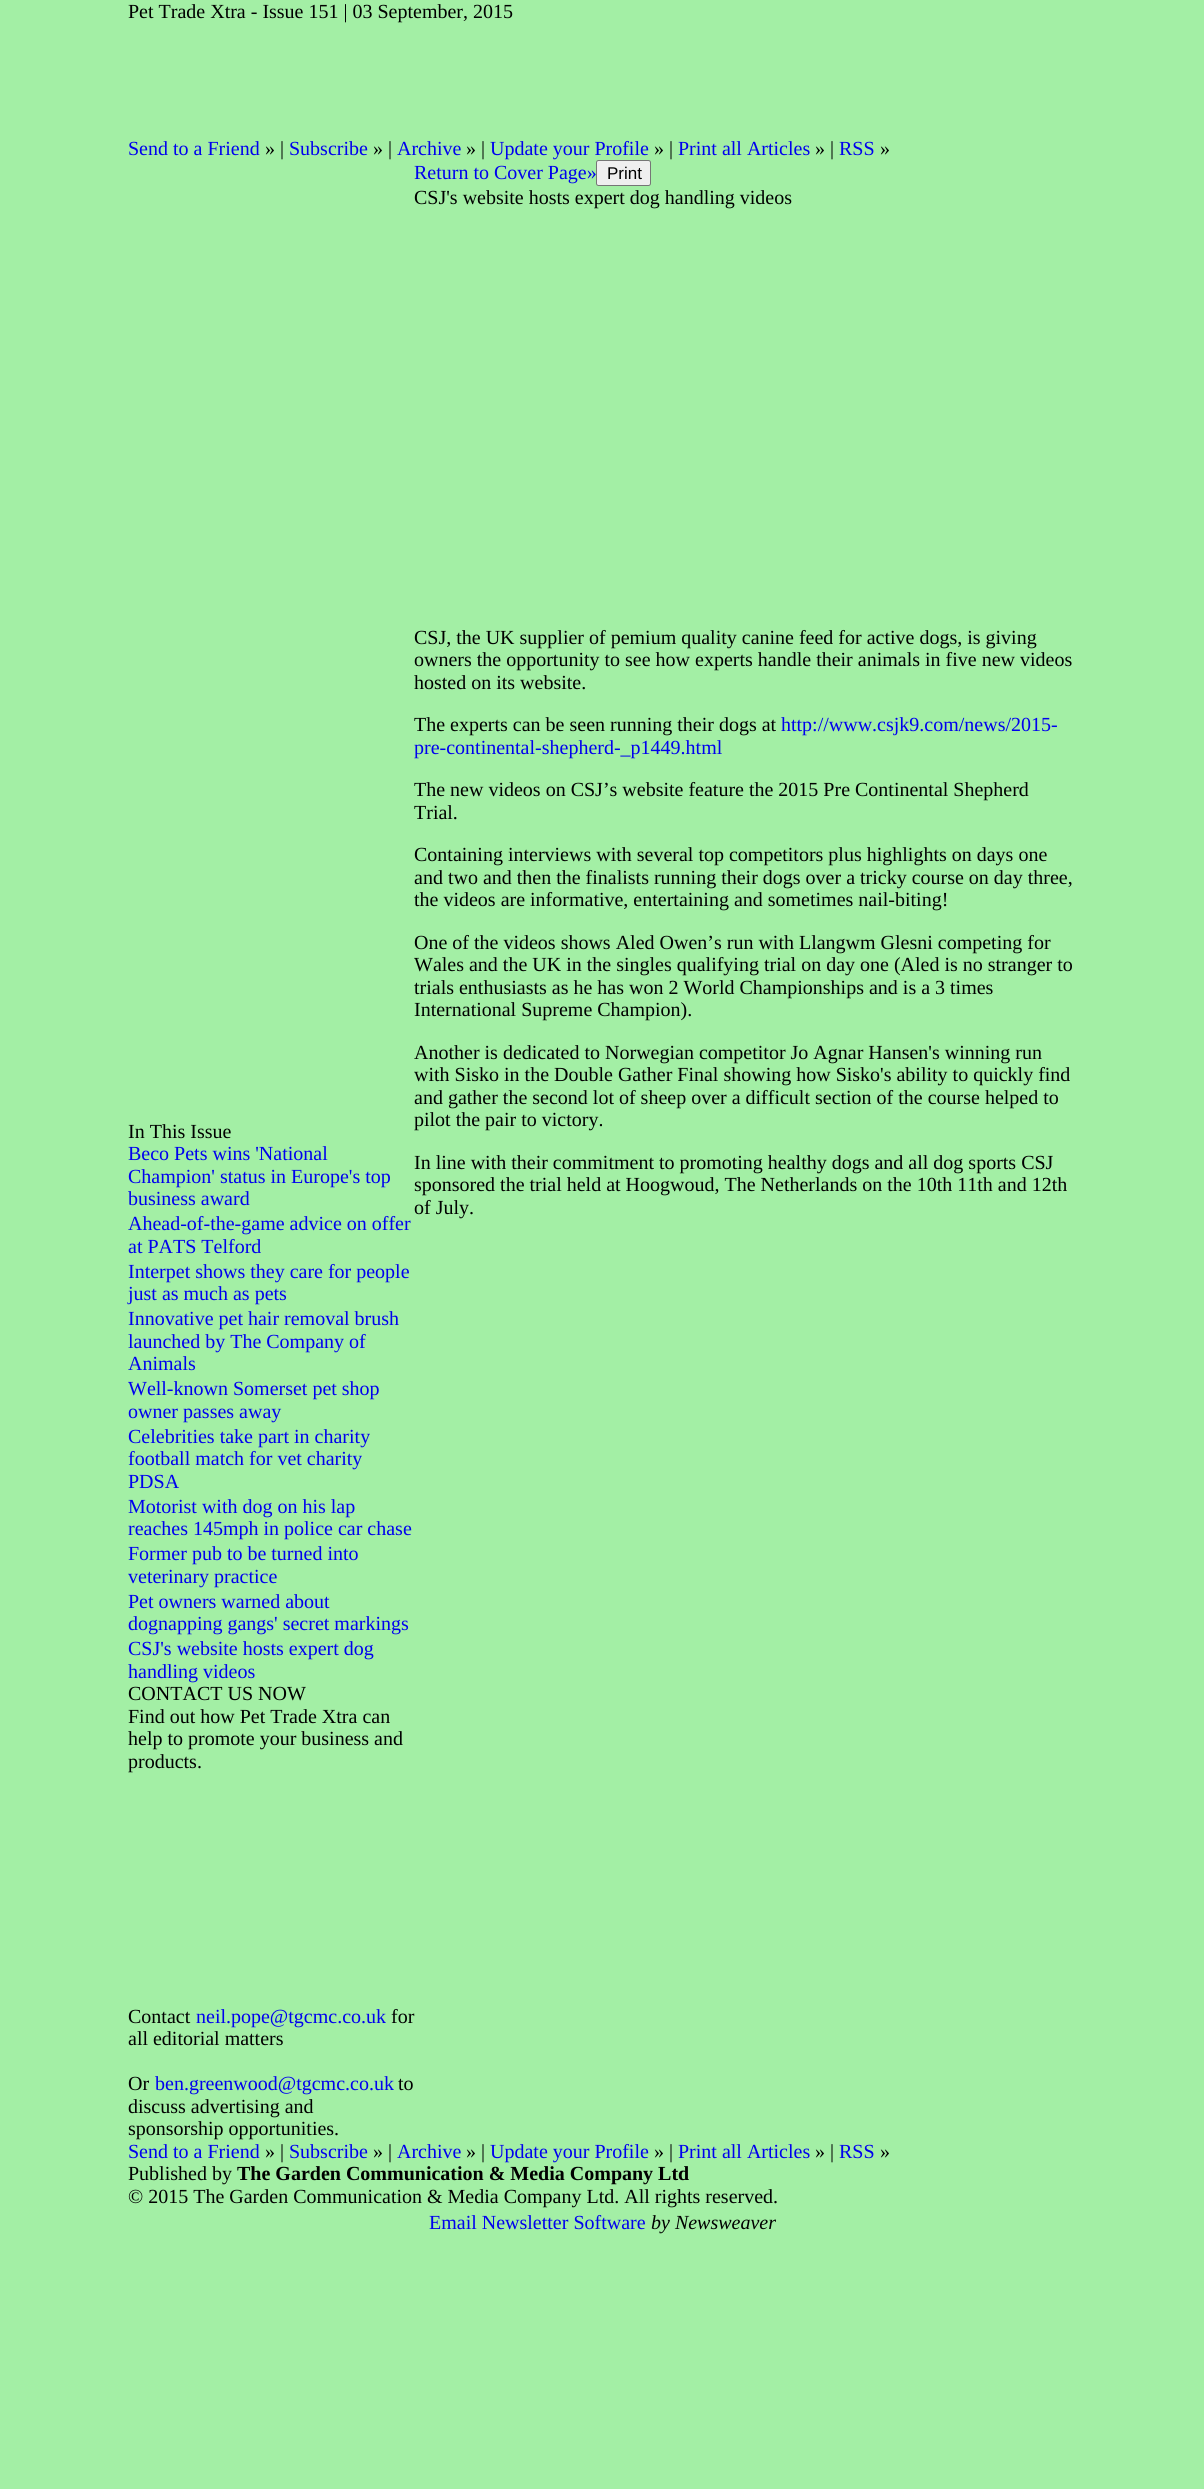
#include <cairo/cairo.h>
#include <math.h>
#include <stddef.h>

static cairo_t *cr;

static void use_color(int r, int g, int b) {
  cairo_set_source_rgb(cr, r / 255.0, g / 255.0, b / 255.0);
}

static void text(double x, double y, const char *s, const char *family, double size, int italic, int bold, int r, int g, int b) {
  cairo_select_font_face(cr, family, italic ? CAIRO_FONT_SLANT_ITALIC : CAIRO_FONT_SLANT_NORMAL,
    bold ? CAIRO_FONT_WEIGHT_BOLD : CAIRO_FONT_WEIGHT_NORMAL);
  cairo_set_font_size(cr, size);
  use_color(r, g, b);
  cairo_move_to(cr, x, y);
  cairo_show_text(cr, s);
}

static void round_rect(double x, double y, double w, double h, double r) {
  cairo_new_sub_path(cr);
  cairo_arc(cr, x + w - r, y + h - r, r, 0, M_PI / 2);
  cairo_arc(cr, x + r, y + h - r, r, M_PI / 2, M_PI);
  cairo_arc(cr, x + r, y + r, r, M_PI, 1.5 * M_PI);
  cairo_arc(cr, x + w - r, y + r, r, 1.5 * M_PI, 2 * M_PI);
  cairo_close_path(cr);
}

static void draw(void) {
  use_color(163, 239, 165);
  cairo_paint(cr);
  use_color(239, 239, 239);
  round_rect(596.5, 160.5, 54, 25, 2);
  cairo_fill_preserve(cr);
  use_color(118, 118, 118);
  cairo_set_line_width(cr, 1);
  cairo_stroke(cr);
  text(128, 18, "Pet Trade Xtra - Issue 151 | 03 September, 2015", "Liberation Serif", 20, 0, 0, 0, 0, 0);
  text(128, 155, "Send to a Friend", "Liberation Serif", 20, 0, 0, 0, 0, 238);
  text(265, 155, "» |", "Liberation Serif", 20, 0, 0, 0, 0, 0);
  text(289, 155, "Subscribe", "Liberation Serif", 20, 0, 0, 0, 0, 238);
  text(373, 155, "» |", "Liberation Serif", 20, 0, 0, 0, 0, 0);
  text(397, 155, "Archive", "Liberation Serif", 20, 0, 0, 0, 0, 238);
  text(466, 155, "» |", "Liberation Serif", 20, 0, 0, 0, 0, 0);
  text(490, 155, "Update your Profile", "Liberation Serif", 20, 0, 0, 0, 0, 238);
  text(654, 155, "» |", "Liberation Serif", 20, 0, 0, 0, 0, 0);
  text(678, 155, "Print all Articles", "Liberation Serif", 20, 0, 0, 0, 0, 238);
  text(815, 155, "» |", "Liberation Serif", 20, 0, 0, 0, 0, 0);
  text(839, 155, "RSS", "Liberation Serif", 20, 0, 0, 0, 0, 238);
  text(880, 155, "»", "Liberation Serif", 20, 0, 0, 0, 0, 0);
  text(414, 179, "Return to Cover Page»", "Liberation Serif", 20, 0, 0, 0, 0, 238);
  text(607, 179, "Print", "Liberation Sans", 17, 0, 0, 0, 0, 0);
  text(414, 204, "CSJ's website hosts expert dog handling videos", "Liberation Serif", 20, 0, 0, 0, 0, 0);
  text(414, 644, "CSJ, the UK supplier of pemium quality canine feed for active dogs, is giving", "Liberation Serif", 20, 0, 0, 0, 0, 0);
  text(414, 666, "owners the opportunity to see how experts handle their animals in five new videos", "Liberation Serif", 20, 0, 0, 0, 0, 0);
  text(414, 689, "hosted on its website.", "Liberation Serif", 20, 0, 0, 0, 0, 0);
  text(414, 731, "The experts can be seen running their dogs at", "Liberation Serif", 20, 0, 0, 0, 0, 0);
  text(781, 731, "http://www.csjk9.com/news/2015-", "Liberation Serif", 20, 0, 0, 0, 0, 238);
  text(414, 754, "pre-continental-shepherd-_p1449.html", "Liberation Serif", 20, 0, 0, 0, 0, 238);
  text(414, 796, "The new videos on CSJ’s website feature the 2015 Pre Continental Shepherd", "Liberation Serif", 20, 0, 0, 0, 0, 0);
  text(414, 819, "Trial.", "Liberation Serif", 20, 0, 0, 0, 0, 0);
  text(414, 861, "Containing interviews with several top competitors plus highlights on days one", "Liberation Serif", 20, 0, 0, 0, 0, 0);
  text(414, 884, "and two and then the finalists running their dogs over a tricky course on day three,", "Liberation Serif", 20, 0, 0, 0, 0, 0);
  text(414, 906, "the videos are informative, entertaining and sometimes nail-biting!", "Liberation Serif", 20, 0, 0, 0, 0, 0);
  text(414, 949, "One of the videos shows Aled Owen’s run with Llangwm Glesni competing for", "Liberation Serif", 20, 0, 0, 0, 0, 0);
  text(414, 971, "Wales and the UK in the singles qualifying trial on day one (Aled is no stranger to", "Liberation Serif", 20, 0, 0, 0, 0, 0);
  text(414, 994, "trials enthusiasts as he has won 2 World Championships and is a 3 times", "Liberation Serif", 20, 0, 0, 0, 0, 0);
  text(414, 1016, "International Supreme Champion).", "Liberation Serif", 20, 0, 0, 0, 0, 0);
  text(414, 1059, "Another is dedicated to Norwegian competitor Jo Agnar Hansen's winning run", "Liberation Serif", 20, 0, 0, 0, 0, 0);
  text(414, 1081, "with Sisko in the Double Gather Final showing how Sisko's ability to quickly find", "Liberation Serif", 20, 0, 0, 0, 0, 0);
  text(414, 1104, "and gather the second lot of sheep over a difficult section of the course helped to", "Liberation Serif", 20, 0, 0, 0, 0, 0);
  text(414, 1126, "pilot the pair to victory.", "Liberation Serif", 20, 0, 0, 0, 0, 0);
  text(414, 1169, "In line with their commitment to promoting healthy dogs and all dog sports CSJ", "Liberation Serif", 20, 0, 0, 0, 0, 0);
  text(414, 1191, "sponsored the trial held at Hoogwoud, The Netherlands on the 10th 11th and 12th", "Liberation Serif", 20, 0, 0, 0, 0, 0);
  text(414, 1214, "of July.", "Liberation Serif", 20, 0, 0, 0, 0, 0);
  text(128, 1138, "In This Issue", "Liberation Serif", 20, 0, 0, 0, 0, 0);
  text(128, 1160, "Beco Pets wins 'National", "Liberation Serif", 20, 0, 0, 0, 0, 238);
  text(128, 1183, "Champion' status in Europe's top", "Liberation Serif", 20, 0, 0, 0, 0, 238);
  text(128, 1205, "business award", "Liberation Serif", 20, 0, 0, 0, 0, 238);
  text(128, 1230, "Ahead-of-the-game advice on offer", "Liberation Serif", 20, 0, 0, 0, 0, 238);
  text(128, 1253, "at PATS Telford", "Liberation Serif", 20, 0, 0, 0, 0, 238);
  text(128, 1278, "Interpet shows they care for people", "Liberation Serif", 20, 0, 0, 0, 0, 238);
  text(128, 1300, "just as much as pets", "Liberation Serif", 20, 0, 0, 0, 0, 238);
  text(128, 1325, "Innovative pet hair removal brush", "Liberation Serif", 20, 0, 0, 0, 0, 238);
  text(128, 1348, "launched by The Company of", "Liberation Serif", 20, 0, 0, 0, 0, 238);
  text(128, 1370, "Animals", "Liberation Serif", 20, 0, 0, 0, 0, 238);
  text(128, 1395, "Well-known Somerset pet shop", "Liberation Serif", 20, 0, 0, 0, 0, 238);
  text(128, 1418, "owner passes away", "Liberation Serif", 20, 0, 0, 0, 0, 238);
  text(128, 1443, "Celebrities take part in charity", "Liberation Serif", 20, 0, 0, 0, 0, 238);
  text(128, 1465, "football match for vet charity", "Liberation Serif", 20, 0, 0, 0, 0, 238);
  text(128, 1488, "PDSA", "Liberation Serif", 20, 0, 0, 0, 0, 238);
  text(128, 1513, "Motorist with dog on his lap", "Liberation Serif", 20, 0, 0, 0, 0, 238);
  text(128, 1535, "reaches 145mph in police car chase", "Liberation Serif", 20, 0, 0, 0, 0, 238);
  text(128, 1560, "Former pub to be turned into", "Liberation Serif", 20, 0, 0, 0, 0, 238);
  text(128, 1583, "veterinary practice", "Liberation Serif", 20, 0, 0, 0, 0, 238);
  text(128, 1608, "Pet owners warned about", "Liberation Serif", 20, 0, 0, 0, 0, 238);
  text(128, 1630, "dognapping gangs' secret markings", "Liberation Serif", 20, 0, 0, 0, 0, 238);
  text(128, 1655, "CSJ's website hosts expert dog", "Liberation Serif", 20, 0, 0, 0, 0, 238);
  text(128, 1678, "handling videos", "Liberation Serif", 20, 0, 0, 0, 0, 238);
  text(128, 1700, "CONTACT US NOW", "Liberation Serif", 20, 0, 0, 0, 0, 0);
  text(128, 1723, "Find out how Pet Trade Xtra can", "Liberation Serif", 20, 0, 0, 0, 0, 0);
  text(128, 1745, "help to promote your business and", "Liberation Serif", 20, 0, 0, 0, 0, 0);
  text(128, 1768, "products.", "Liberation Serif", 20, 0, 0, 0, 0, 0);
  text(128, 2023, "Contact", "Liberation Serif", 20, 0, 0, 0, 0, 0);
  text(196, 2023, "neil.pope@tgcmc.co.uk", "Liberation Serif", 20, 0, 0, 0, 0, 238);
  text(391, 2023, "for", "Liberation Serif", 20, 0, 0, 0, 0, 0);
  text(128, 2045, "all editorial matters", "Liberation Serif", 20, 0, 0, 0, 0, 0);
  text(128, 2090, "Or", "Liberation Serif", 20, 0, 0, 0, 0, 0);
  text(155, 2090, "ben.greenwood@tgcmc.co.uk", "Liberation Serif", 20, 0, 0, 0, 0, 238);
  text(398, 2090, "to", "Liberation Serif", 20, 0, 0, 0, 0, 0);
  text(128, 2113, "discuss advertising and", "Liberation Serif", 20, 0, 0, 0, 0, 0);
  text(128, 2135, "sponsorship opportunities.", "Liberation Serif", 20, 0, 0, 0, 0, 0);
  text(128, 2158, "Send to a Friend", "Liberation Serif", 20, 0, 0, 0, 0, 238);
  text(265, 2158, "» |", "Liberation Serif", 20, 0, 0, 0, 0, 0);
  text(289, 2158, "Subscribe", "Liberation Serif", 20, 0, 0, 0, 0, 238);
  text(373, 2158, "» |", "Liberation Serif", 20, 0, 0, 0, 0, 0);
  text(397, 2158, "Archive", "Liberation Serif", 20, 0, 0, 0, 0, 238);
  text(466, 2158, "» |", "Liberation Serif", 20, 0, 0, 0, 0, 0);
  text(490, 2158, "Update your Profile", "Liberation Serif", 20, 0, 0, 0, 0, 238);
  text(654, 2158, "» |", "Liberation Serif", 20, 0, 0, 0, 0, 0);
  text(678, 2158, "Print all Articles", "Liberation Serif", 20, 0, 0, 0, 0, 238);
  text(815, 2158, "» |", "Liberation Serif", 20, 0, 0, 0, 0, 0);
  text(839, 2158, "RSS", "Liberation Serif", 20, 0, 0, 0, 0, 238);
  text(880, 2158, "»", "Liberation Serif", 20, 0, 0, 0, 0, 0);
  text(128, 2180, "Published by", "Liberation Serif", 20, 0, 0, 0, 0, 0);
  text(237, 2180, "The Garden Communication & Media Company Ltd", "Liberation Serif", 20, 0, 1, 0, 0, 0);
  text(128, 2203, "© 2015 The Garden Communication & Media Company Ltd. All rights reserved.", "Liberation Serif", 20, 0, 0, 0, 0, 0);
  text(429, 2229, "Email Newsletter Software", "Liberation Serif", 20, 0, 0, 0, 0, 238);
  text(651, 2229, "by Newsweaver", "Liberation Serif", 20, 1, 0, 0, 0, 0);
}

int main(void) {
  cairo_surface_t *surface = cairo_image_surface_create(CAIRO_FORMAT_RGB24, 1204, 2489);
  cr = cairo_create(surface);
  cairo_font_options_t *options = cairo_font_options_create();
  cairo_font_options_set_hint_metrics(options, CAIRO_HINT_METRICS_OFF);
  cairo_font_options_set_hint_style(options, CAIRO_HINT_STYLE_NONE);
  cairo_set_font_options(cr, options);
  cairo_set_miter_limit(cr, 4);
  draw();
  cairo_surface_write_to_png(surface, "out.png");
  cairo_font_options_destroy(options);
  cairo_destroy(cr);
  cairo_surface_destroy(surface);
  return 0;
}
